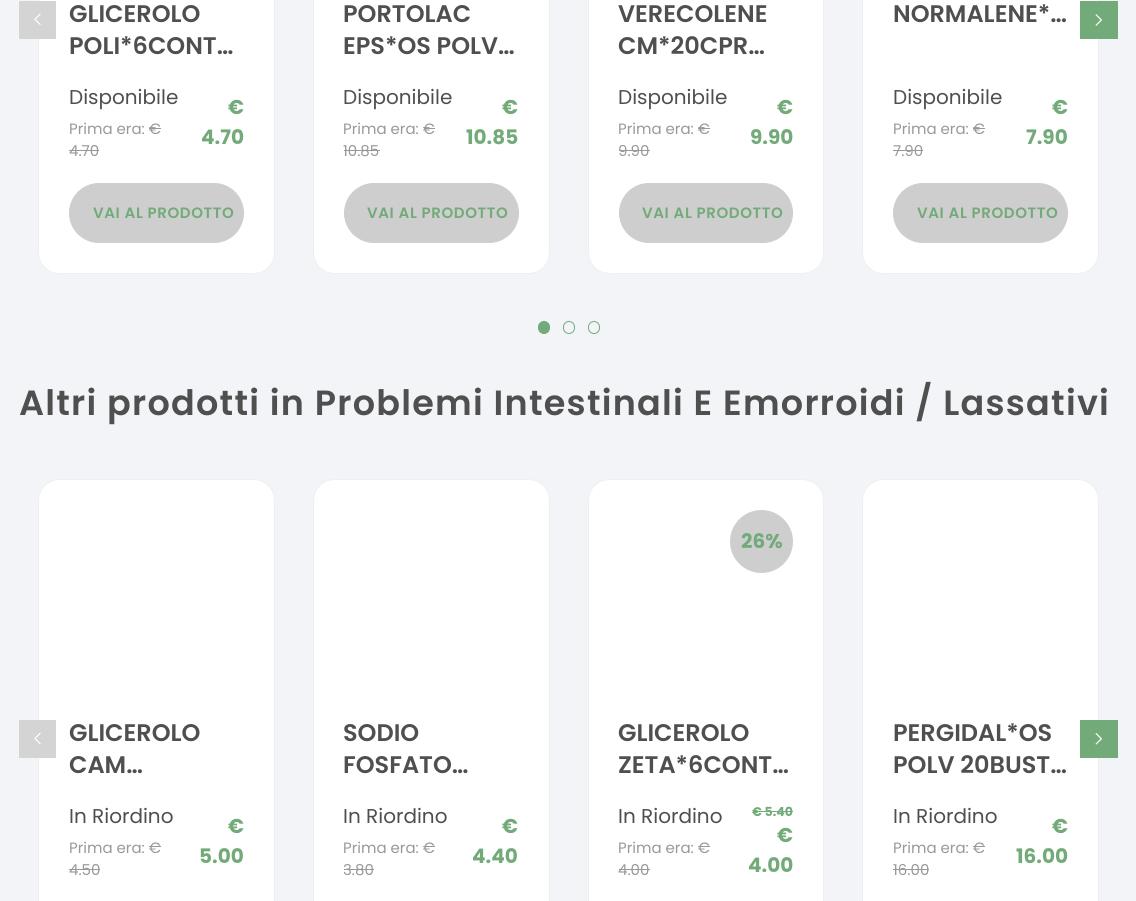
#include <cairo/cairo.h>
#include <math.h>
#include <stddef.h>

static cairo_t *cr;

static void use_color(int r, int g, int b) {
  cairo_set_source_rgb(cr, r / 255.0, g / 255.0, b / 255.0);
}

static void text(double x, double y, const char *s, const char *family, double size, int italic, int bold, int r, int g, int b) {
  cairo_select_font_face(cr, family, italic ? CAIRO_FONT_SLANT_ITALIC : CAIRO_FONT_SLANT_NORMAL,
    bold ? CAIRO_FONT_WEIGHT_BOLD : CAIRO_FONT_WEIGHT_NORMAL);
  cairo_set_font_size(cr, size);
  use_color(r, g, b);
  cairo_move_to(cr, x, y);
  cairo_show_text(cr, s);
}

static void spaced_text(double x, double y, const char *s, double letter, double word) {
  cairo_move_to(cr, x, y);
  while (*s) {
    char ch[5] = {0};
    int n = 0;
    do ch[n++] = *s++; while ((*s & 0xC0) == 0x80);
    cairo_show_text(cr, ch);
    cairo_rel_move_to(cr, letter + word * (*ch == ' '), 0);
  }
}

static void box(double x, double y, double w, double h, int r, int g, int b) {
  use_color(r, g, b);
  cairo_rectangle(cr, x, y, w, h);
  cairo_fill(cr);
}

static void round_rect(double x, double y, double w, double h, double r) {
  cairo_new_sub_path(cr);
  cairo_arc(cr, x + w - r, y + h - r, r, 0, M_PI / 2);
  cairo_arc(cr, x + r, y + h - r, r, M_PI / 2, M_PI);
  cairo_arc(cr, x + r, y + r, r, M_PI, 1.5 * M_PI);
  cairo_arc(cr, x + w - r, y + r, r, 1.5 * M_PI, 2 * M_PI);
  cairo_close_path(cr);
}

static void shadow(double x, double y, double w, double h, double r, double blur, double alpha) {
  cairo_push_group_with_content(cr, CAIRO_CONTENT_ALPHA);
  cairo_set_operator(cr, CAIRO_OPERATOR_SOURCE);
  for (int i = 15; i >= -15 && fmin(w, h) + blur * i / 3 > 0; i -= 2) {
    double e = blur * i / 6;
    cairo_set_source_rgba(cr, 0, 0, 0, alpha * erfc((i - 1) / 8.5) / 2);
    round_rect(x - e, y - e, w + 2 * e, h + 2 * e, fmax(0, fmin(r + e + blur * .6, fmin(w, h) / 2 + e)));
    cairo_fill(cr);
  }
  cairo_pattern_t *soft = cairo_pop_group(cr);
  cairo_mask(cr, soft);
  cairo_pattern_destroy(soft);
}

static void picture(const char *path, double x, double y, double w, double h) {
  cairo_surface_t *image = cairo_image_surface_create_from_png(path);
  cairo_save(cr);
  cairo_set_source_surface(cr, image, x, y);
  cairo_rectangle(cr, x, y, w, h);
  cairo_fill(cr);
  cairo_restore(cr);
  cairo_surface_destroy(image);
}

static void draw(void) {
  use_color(243, 244, 248);
  cairo_paint(cr);
  use_color(0, 0, 0);
  shadow(39, -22, 235, 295, 20, 0.5, 0.1);
  use_color(255, 255, 255);
  round_rect(39, -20, 235, 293, 20);
  cairo_fill(cr);
  box(19, 1, 37, 38, 212, 212, 212);
  picture("img_01.png", 34, 13, 7, 12);
  box(149, 128, 12, 1, 153, 153, 153);
  box(69, 150, 30, 1, 153, 153, 153);
  use_color(206, 206, 206);
  round_rect(69.5, 183.5, 174, 59, 29.5);
  cairo_fill_preserve(cr);
  cairo_set_line_width(cr, 1);
  cairo_stroke(cr);
  use_color(0, 0, 0);
  shadow(314, -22, 235, 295, 20, 0.5, 0.1);
  use_color(255, 255, 255);
  round_rect(314, -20, 235, 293, 20);
  cairo_fill(cr);
  box(424, 128, 11, 1, 153, 153, 153);
  box(344, 150, 36, 1, 153, 153, 153);
  use_color(206, 206, 206);
  round_rect(344.5, 183.5, 174, 59, 29.5);
  cairo_fill_preserve(cr);
  cairo_stroke(cr);
  use_color(0, 0, 0);
  shadow(589, -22, 234, 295, 20, 0.5, 0.1);
  use_color(255, 255, 255);
  round_rect(589, -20, 234, 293, 20);
  cairo_fill(cr);
  box(698, 128, 12, 1, 153, 153, 153);
  box(619, 150, 31, 1, 153, 153, 153);
  use_color(206, 206, 206);
  round_rect(619.5, 183.5, 173, 59, 29.5);
  cairo_fill_preserve(cr);
  cairo_stroke(cr);
  use_color(0, 0, 0);
  shadow(863, -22, 235, 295, 20, 0.5, 0.1);
  use_color(255, 255, 255);
  round_rect(863, -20, 235, 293, 20);
  cairo_fill(cr);
  box(973, 128, 12, 1, 153, 153, 153);
  box(893, 150, 30, 1, 153, 153, 153);
  use_color(206, 206, 206);
  round_rect(893.5, 183.5, 174, 59, 29.5);
  cairo_fill_preserve(cr);
  cairo_stroke(cr);
  box(1080, 1, 38, 38, 115, 170, 121);
  picture("img_02.png", 1095, 14, 7, 12);
  round_rect(538.5, 321.5, 11, 12, 5.5);
  cairo_fill_preserve(cr);
  cairo_stroke(cr);
  round_rect(563.5, 321.5, 11, 12, 5.5);
  cairo_stroke(cr);
  round_rect(588.5, 321.5, 11, 12, 5.5);
  cairo_stroke(cr);
  use_color(0, 0, 0);
  shadow(39, 480, 235, 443, 20, 0.5, 0.1);
  use_color(255, 255, 255);
  round_rect(39, 480, 235, 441, 20);
  cairo_fill(cr);
  box(19, 720, 37, 38, 212, 212, 212);
  picture("img_03.png", 34, 732, 7, 12);
  box(149, 846, 12, 1, 153, 153, 153);
  box(69, 869, 31, 1, 153, 153, 153);
  use_color(0, 0, 0);
  shadow(314, 480, 235, 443, 20, 0.5, 0.1);
  use_color(255, 255, 255);
  round_rect(314, 480, 235, 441, 20);
  cairo_fill(cr);
  box(424, 846, 11, 1, 153, 153, 153);
  box(344, 869, 30, 1, 153, 153, 153);
  use_color(0, 0, 0);
  shadow(589, 480, 234, 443, 20, 0.5, 0.1);
  use_color(255, 255, 255);
  round_rect(589, 480, 234, 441, 20);
  cairo_fill(cr);
  use_color(206, 206, 206);
  cairo_arc(cr, 761.5, 541.5, 31.5, 0, 2 * M_PI);
  cairo_fill(cr);
  box(698, 846, 12, 1, 153, 153, 153);
  box(619, 869, 31, 1, 153, 153, 153);
  box(753, 811, 40, 1, 115, 170, 121);
  use_color(0, 0, 0);
  shadow(863, 480, 235, 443, 20, 0.5, 0.1);
  use_color(255, 255, 255);
  round_rect(863, 480, 235, 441, 20);
  cairo_fill(cr);
  box(973, 846, 12, 1, 153, 153, 153);
  box(893, 869, 36, 1, 153, 153, 153);
  box(1080, 720, 38, 38, 115, 170, 121);
  picture("img_04.png", 1095, 733, 7, 12);
  text(69, 22, "GLICEROLO", "Poppins SemiBold", 24, 0, 0, 79, 79, 79);
  text(69, 54, "POLI*6CONT…", "Poppins SemiBold", 24, 0, 0, 79, 79, 79);
  text(69, 104, "Disponibile", "Poppins", 20, 0, 0, 79, 79, 79);
  text(69, 134, "Prima era: €", "Poppins", 15, 0, 0, 153, 153, 153);
  text(69, 156, "4.70", "Poppins", 15, 0, 0, 153, 153, 153);
  text(228, 114, "€", "Poppins", 20, 0, 1, 115, 170, 121);
  text(201, 144, "4.70", "Poppins", 20, 0, 1, 115, 170, 121);
  cairo_select_font_face(cr, "Poppins SemiBold", CAIRO_FONT_SLANT_NORMAL, CAIRO_FONT_WEIGHT_NORMAL);
  cairo_set_font_size(cr, 15);
  spaced_text(93, 218, "VAI AL PRODOTTO", 0.6, 0);
  text(343, 22, "PORTOLAC", "Poppins SemiBold", 24, 0, 0, 79, 79, 79);
  text(343, 54, "EPS*OS POLV…", "Poppins SemiBold", 24, 0, 0, 79, 79, 79);
  text(343, 104, "Disponibile", "Poppins", 20, 0, 0, 79, 79, 79);
  text(343, 134, "Prima era: €", "Poppins", 15, 0, 0, 153, 153, 153);
  text(343, 156, "10.85", "Poppins", 15, 0, 0, 153, 153, 153);
  text(502, 114, "€", "Poppins", 20, 0, 1, 115, 170, 121);
  text(466, 144, "10.85", "Poppins", 20, 0, 1, 115, 170, 121);
  cairo_select_font_face(cr, "Poppins SemiBold", CAIRO_FONT_SLANT_NORMAL, CAIRO_FONT_WEIGHT_NORMAL);
  cairo_set_font_size(cr, 15);
  spaced_text(367, 218, "VAI AL PRODOTTO", 0.6, 0);
  text(618, 22, "VERECOLENE", "Poppins SemiBold", 24, 0, 0, 79, 79, 79);
  text(618, 54, "CM*20CPR…", "Poppins SemiBold", 24, 0, 0, 79, 79, 79);
  text(618, 104, "Disponibile", "Poppins", 20, 0, 0, 79, 79, 79);
  text(618, 134, "Prima era: €", "Poppins", 15, 0, 0, 153, 153, 153);
  text(618, 156, "9.90", "Poppins", 15, 0, 0, 153, 153, 153);
  text(777, 114, "€", "Poppins", 20, 0, 1, 115, 170, 121);
  text(750, 144, "9.90", "Poppins", 20, 0, 1, 115, 170, 121);
  cairo_select_font_face(cr, "Poppins SemiBold", CAIRO_FONT_SLANT_NORMAL, CAIRO_FONT_WEIGHT_NORMAL);
  cairo_set_font_size(cr, 15);
  spaced_text(642, 218, "VAI AL PRODOTTO", 0.6, 0);
  text(893, 22, "NORMALENE*…", "Poppins SemiBold", 24, 0, 0, 79, 79, 79);
  text(893, 104, "Disponibile", "Poppins", 20, 0, 0, 79, 79, 79);
  text(893, 134, "Prima era: €", "Poppins", 15, 0, 0, 153, 153, 153);
  text(893, 156, "7.90", "Poppins", 15, 0, 0, 153, 153, 153);
  text(1052, 114, "€", "Poppins", 20, 0, 1, 115, 170, 121);
  text(1026, 144, "7.90", "Poppins", 20, 0, 1, 115, 170, 121);
  cairo_select_font_face(cr, "Poppins SemiBold", CAIRO_FONT_SLANT_NORMAL, CAIRO_FONT_WEIGHT_NORMAL);
  cairo_set_font_size(cr, 15);
  spaced_text(917, 218, "VAI AL PRODOTTO", 0.6, 0);
  cairo_set_font_size(cr, 35);
  use_color(79, 79, 79);
  spaced_text(19, 415, "Altri prodotti in Problemi Intestinali E Emorroidi / Lassativi", 1.25, 0);
  text(69, 741, "GLICEROLO", "Poppins SemiBold", 24, 0, 0, 79, 79, 79);
  text(69, 773, "CAM…", "Poppins SemiBold", 24, 0, 0, 79, 79, 79);
  text(69, 823, "In Riordino", "Poppins", 20, 0, 0, 79, 79, 79);
  text(69, 853, "Prima era: €", "Poppins", 15, 0, 0, 153, 153, 153);
  text(69, 875, "4.50", "Poppins", 15, 0, 0, 153, 153, 153);
  text(228, 833, "€", "Poppins", 20, 0, 1, 115, 170, 121);
  text(199, 863, "5.00", "Poppins", 20, 0, 1, 115, 170, 121);
  text(343, 741, "SODIO", "Poppins SemiBold", 24, 0, 0, 79, 79, 79);
  text(343, 773, "FOSFATO…", "Poppins SemiBold", 24, 0, 0, 79, 79, 79);
  text(343, 823, "In Riordino", "Poppins", 20, 0, 0, 79, 79, 79);
  text(343, 853, "Prima era: €", "Poppins", 15, 0, 0, 153, 153, 153);
  text(343, 875, "3.80", "Poppins", 15, 0, 0, 153, 153, 153);
  text(502, 833, "€", "Poppins", 20, 0, 1, 115, 170, 121);
  text(472, 863, "4.40", "Poppins", 20, 0, 1, 115, 170, 121);
  text(741, 548, "26%", "Poppins", 20, 0, 1, 115, 170, 121);
  text(618, 741, "GLICEROLO", "Poppins SemiBold", 24, 0, 0, 79, 79, 79);
  text(618, 773, "ZETA*6CONT…", "Poppins SemiBold", 24, 0, 0, 79, 79, 79);
  text(618, 823, "In Riordino", "Poppins", 20, 0, 0, 79, 79, 79);
  text(618, 853, "Prima era: €", "Poppins", 15, 0, 0, 153, 153, 153);
  text(618, 875, "4.00", "Poppins", 15, 0, 0, 153, 153, 153);
  text(752, 816, "€ 5.40", "Poppins", 12.5, 0, 1, 115, 170, 121);
  text(777, 842, "€", "Poppins", 20, 0, 1, 115, 170, 121);
  text(748, 872, "4.00", "Poppins", 20, 0, 1, 115, 170, 121);
  text(893, 741, "PERGIDAL*OS", "Poppins SemiBold", 24, 0, 0, 79, 79, 79);
  text(893, 773, "POLV 20BUST…", "Poppins SemiBold", 24, 0, 0, 79, 79, 79);
  text(893, 823, "In Riordino", "Poppins", 20, 0, 0, 79, 79, 79);
  text(893, 853, "Prima era: €", "Poppins", 15, 0, 0, 153, 153, 153);
  text(893, 875, "16.00", "Poppins", 15, 0, 0, 153, 153, 153);
  text(1052, 833, "€", "Poppins", 20, 0, 1, 115, 170, 121);
  text(1016, 863, "16.00", "Poppins", 20, 0, 1, 115, 170, 121);
}

int main(void) {
  cairo_surface_t *surface = cairo_image_surface_create(CAIRO_FORMAT_RGB24, 1136, 901);
  cr = cairo_create(surface);
  cairo_font_options_t *options = cairo_font_options_create();
  cairo_font_options_set_hint_metrics(options, CAIRO_HINT_METRICS_OFF);
  cairo_font_options_set_hint_style(options, CAIRO_HINT_STYLE_NONE);
  cairo_set_font_options(cr, options);
  cairo_set_miter_limit(cr, 4);
  draw();
  cairo_surface_write_to_png(surface, "out.png");
  cairo_font_options_destroy(options);
  cairo_destroy(cr);
  cairo_surface_destroy(surface);
  return 0;
}
